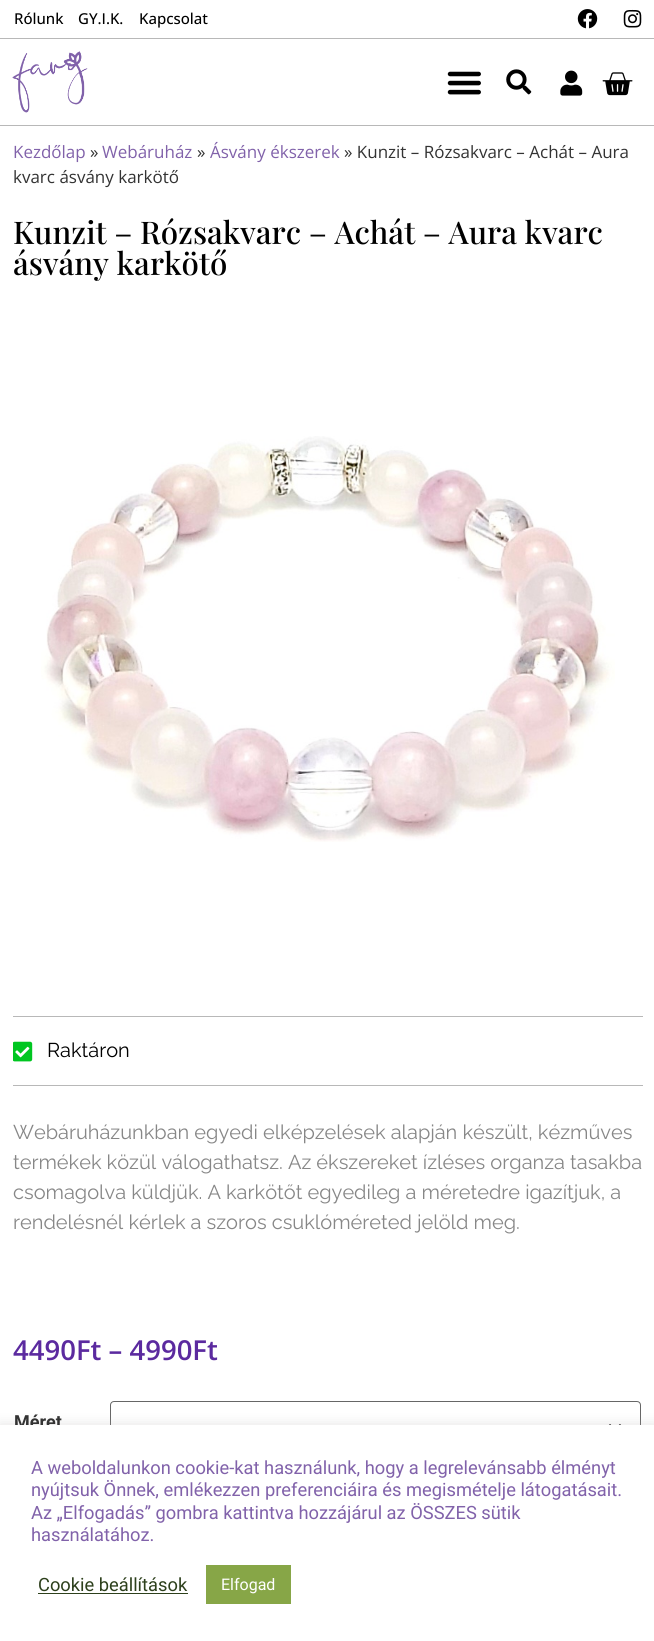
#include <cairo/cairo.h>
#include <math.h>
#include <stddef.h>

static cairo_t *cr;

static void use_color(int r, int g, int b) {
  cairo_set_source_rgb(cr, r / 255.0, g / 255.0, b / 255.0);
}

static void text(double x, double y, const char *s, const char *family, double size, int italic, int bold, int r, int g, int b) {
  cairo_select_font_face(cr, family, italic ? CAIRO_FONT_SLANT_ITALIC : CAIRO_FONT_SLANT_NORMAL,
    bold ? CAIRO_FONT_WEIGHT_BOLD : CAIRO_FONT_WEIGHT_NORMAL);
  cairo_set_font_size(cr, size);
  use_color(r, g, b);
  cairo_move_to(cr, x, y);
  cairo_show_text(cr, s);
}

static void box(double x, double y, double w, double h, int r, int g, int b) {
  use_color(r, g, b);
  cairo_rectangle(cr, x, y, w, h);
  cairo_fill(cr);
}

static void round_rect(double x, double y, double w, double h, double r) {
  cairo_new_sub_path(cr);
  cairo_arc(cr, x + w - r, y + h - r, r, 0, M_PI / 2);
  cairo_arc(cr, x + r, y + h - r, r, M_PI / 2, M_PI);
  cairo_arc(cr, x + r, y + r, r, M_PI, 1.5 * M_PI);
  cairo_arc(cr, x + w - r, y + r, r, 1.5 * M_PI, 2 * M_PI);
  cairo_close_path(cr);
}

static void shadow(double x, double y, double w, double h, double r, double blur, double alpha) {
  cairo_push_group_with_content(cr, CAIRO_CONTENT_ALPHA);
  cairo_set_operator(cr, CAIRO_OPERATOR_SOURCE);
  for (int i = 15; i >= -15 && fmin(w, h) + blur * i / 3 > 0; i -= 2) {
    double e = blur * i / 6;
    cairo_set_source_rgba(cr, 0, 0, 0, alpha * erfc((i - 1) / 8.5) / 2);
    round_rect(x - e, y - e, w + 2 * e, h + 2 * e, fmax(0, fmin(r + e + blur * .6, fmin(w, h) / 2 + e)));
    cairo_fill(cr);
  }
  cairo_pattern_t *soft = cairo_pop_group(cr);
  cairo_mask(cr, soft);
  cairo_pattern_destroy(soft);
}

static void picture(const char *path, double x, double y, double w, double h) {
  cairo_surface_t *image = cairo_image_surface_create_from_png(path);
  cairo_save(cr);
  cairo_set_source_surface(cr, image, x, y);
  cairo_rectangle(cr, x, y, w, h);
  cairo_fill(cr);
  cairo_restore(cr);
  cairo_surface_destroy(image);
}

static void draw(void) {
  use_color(255, 255, 255);
  cairo_paint(cr);
  box(0, 38, 654, 1, 184, 184, 184);
  picture("img_01.png", 577, 9, 21, 20);
  picture("img_02.png", 623, 9, 19, 19);
  box(0, 125, 654, 1, 184, 184, 184);
  picture("img_03.png", 12, 51, 76, 62);
  picture("img_04.png", 447, 71, 34, 24);
  picture("img_05.png", 506, 69, 26, 26);
  picture("img_06.png", 560, 70, 23, 26);
  picture("img_07.png", 602, 72, 31, 24);
  picture("img_08.png", 41, 436, 574, 406);
  box(13, 1016, 630, 1, 184, 184, 184);
  picture("img_09.png", 13, 1041, 20, 21);
  box(13, 1085, 630, 1, 184, 184, 184);
  cairo_new_path(cr);
  cairo_move_to(cr, 610, 1425);
  cairo_line_to(cr, 615, 1430);
  cairo_line_to(cr, 620, 1425);
  use_color(0, 0, 0);
  cairo_set_line_width(cr, 1.7);
  cairo_set_line_cap(cr, CAIRO_LINE_CAP_ROUND);
  cairo_set_line_join(cr, CAIRO_LINE_JOIN_ROUND);
  cairo_stroke(cr);
  round_rect(110.5, 1401.5, 530, 52, 3.5);
  use_color(102, 102, 102);
  cairo_set_line_width(cr, 1);
  cairo_set_line_cap(cr, CAIRO_LINE_CAP_BUTT);
  cairo_set_line_join(cr, CAIRO_LINE_JOIN_MITER);
  cairo_stroke(cr);
  use_color(172, 171, 171);
  shadow(0, 1424, 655, 216, 0, 6, 0.3);
  text(14, 24, "Rólunk", "Open Sans Medium", 15, 0, 0, 0, 0, 0);
  text(78, 24, "GY.I.K.", "Open Sans Medium", 15, 0, 0, 0, 0, 0);
  text(139, 24, "Kapcsolat", "Open Sans Medium", 15, 0, 0, 0, 0, 0);
  text(13, 158, "Kezdőlap", "Open Sans", 17, 0, 0, 129, 98, 170);
  text(90, 158, "»", "Open Sans", 17, 0, 0, 51, 51, 51);
  text(102, 158, "Webáruház", "Open Sans", 17, 0, 0, 129, 98, 170);
  text(197, 158, "»", "Open Sans", 17, 0, 0, 51, 51, 51);
  text(210, 158, "Ásvány ékszerek", "Open Sans", 17, 0, 0, 129, 98, 170);
  text(344, 158, "» Kunzit – Rózsakvarc – Achát – Aura", "Open Sans", 17, 0, 0, 51, 51, 51);
  text(13, 183, "kvarc ásvány karkötő", "Open Sans", 17, 0, 0, 51, 51, 51);
  text(13, 244, "Kunzit – Rózsakvarc – Achát – Aura kvarc", "Playfair Display Medium", 31.25, 0, 0, 0, 0, 0);
  text(13, 275, "ásvány karkötő", "Playfair Display Medium", 31.25, 0, 0, 0, 0, 0);
  text(47, 1057, "Raktáron", "Raleway", 20, 0, 0, 0, 0, 0);
  text(13, 1139, "Webáruházunkban egyedi elképzelések alapján készült, kézműves", "Raleway", 20, 0, 0, 135, 135, 135);
  text(13, 1169, "termékek közül válogathatsz. Az ékszereket ízléses organza tasakba", "Raleway", 20, 0, 0, 135, 135, 135);
  text(13, 1199, "csomagolva küldjük. A karkötőt egyedileg a méretedre igazítjuk, a", "Raleway", 20, 0, 0, 135, 135, 135);
  text(13, 1229, "rendelésnél kérlek a szoros csuklóméreted jelöld meg.", "Raleway", 20, 0, 0, 135, 135, 135);
  text(13, 1360, "4490Ft – 4990Ft", "Open Sans SemiBold", 27.5, 0, 0, 91, 42, 159);
  text(14, 1428, "Méret", "Roboto", 18, 0, 1, 51, 51, 51);
  box(0, 1425, 654, 216, 255, 255, 255);
  text(31, 1474, "A weboldalunkon cookie-kat használunk, hogy a legrelevánsabb élményt", "Roboto", 18.3, 0, 0, 129, 98, 170);
  text(31, 1496, "nyújtsuk Önnek, emlékezzen preferenciáira és megismételje látogatásait.", "Roboto", 18.3, 0, 0, 129, 98, 170);
  text(31, 1519, "Az „Elfogadás” gombra kattintva hozzájárul az ÖSSZES sütik", "Roboto", 18.3, 0, 0, 129, 98, 170);
  text(31, 1541, "használatához.", "Roboto", 18.3, 0, 0, 129, 98, 170);
  text(38, 1591, "Cookie beállítások", "Roboto", 18.3, 0, 0, 45, 64, 28);
  box(38, 1593, 150, 1, 45, 64, 28);
  box(206, 1565, 85, 39, 135, 166, 71);
  text(221, 1590, "Elfogad", "Roboto", 16, 0, 0, 255, 255, 255);
}

int main(void) {
  cairo_surface_t *surface = cairo_image_surface_create(CAIRO_FORMAT_RGB24, 654, 1641);
  cr = cairo_create(surface);
  cairo_font_options_t *options = cairo_font_options_create();
  cairo_font_options_set_hint_metrics(options, CAIRO_HINT_METRICS_OFF);
  cairo_font_options_set_hint_style(options, CAIRO_HINT_STYLE_NONE);
  cairo_set_font_options(cr, options);
  cairo_set_miter_limit(cr, 4);
  draw();
  cairo_surface_write_to_png(surface, "out.png");
  cairo_font_options_destroy(options);
  cairo_destroy(cr);
  cairo_surface_destroy(surface);
  return 0;
}
